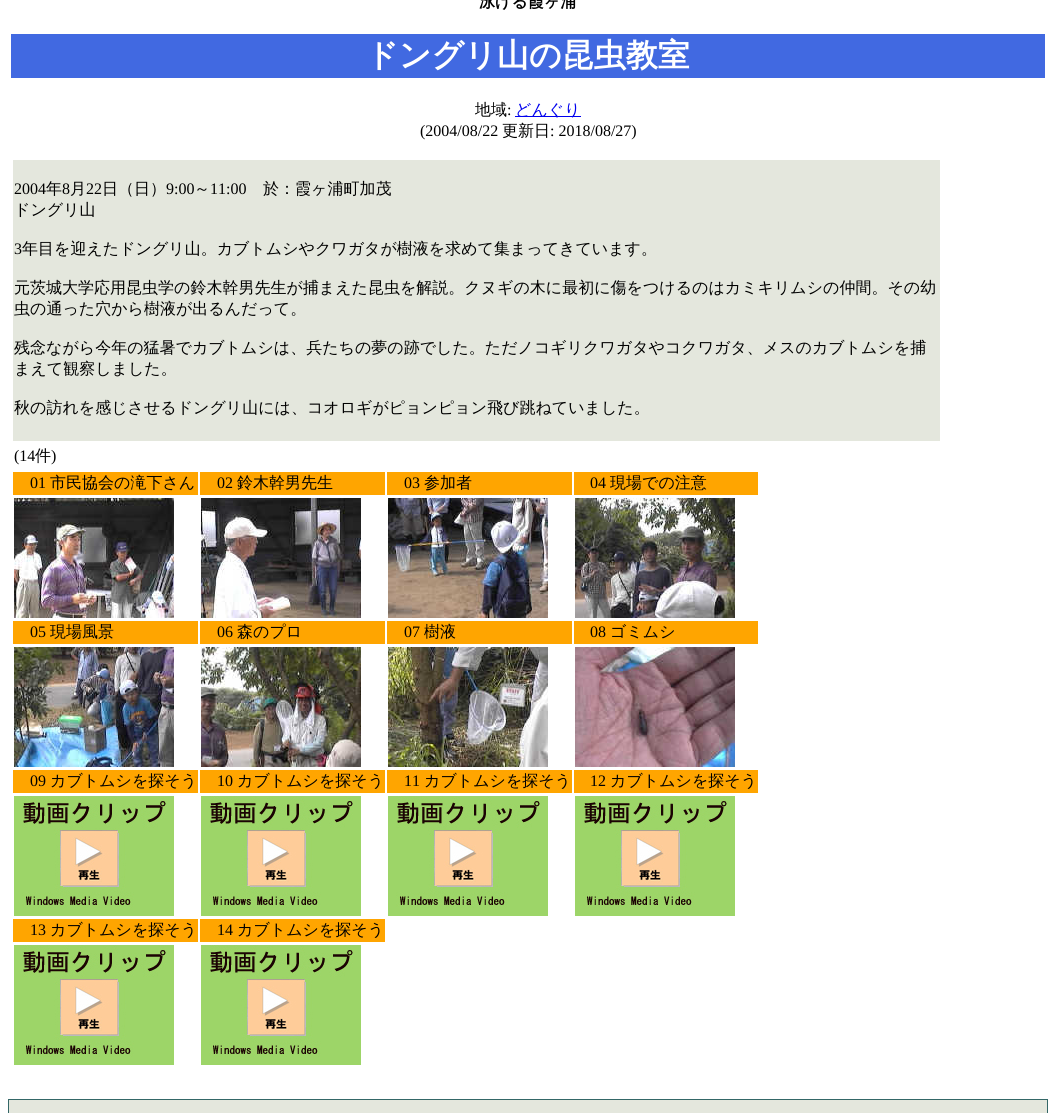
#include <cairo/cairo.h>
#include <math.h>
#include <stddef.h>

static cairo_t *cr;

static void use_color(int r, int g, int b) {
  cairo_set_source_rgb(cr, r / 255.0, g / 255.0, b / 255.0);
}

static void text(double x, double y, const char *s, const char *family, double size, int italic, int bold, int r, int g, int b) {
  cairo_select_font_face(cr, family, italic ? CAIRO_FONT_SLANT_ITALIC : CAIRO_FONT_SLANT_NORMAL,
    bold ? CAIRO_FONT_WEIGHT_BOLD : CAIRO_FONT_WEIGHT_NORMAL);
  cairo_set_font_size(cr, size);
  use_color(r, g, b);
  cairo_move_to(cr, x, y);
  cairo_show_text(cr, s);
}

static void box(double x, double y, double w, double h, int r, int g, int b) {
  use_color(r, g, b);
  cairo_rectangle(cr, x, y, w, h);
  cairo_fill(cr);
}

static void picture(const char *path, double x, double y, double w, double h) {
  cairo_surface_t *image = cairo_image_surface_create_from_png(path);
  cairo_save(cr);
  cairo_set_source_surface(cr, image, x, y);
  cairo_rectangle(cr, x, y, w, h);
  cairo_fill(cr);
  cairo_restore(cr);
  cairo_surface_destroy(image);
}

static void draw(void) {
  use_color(255, 255, 255);
  cairo_paint(cr);
  box(11, 34, 1034, 44, 65, 105, 225);
  box(515, 116, 66, 1, 0, 0, 238);
  box(13, 160, 927, 281, 228, 231, 221);
  box(13, 472, 185, 23, 255, 165, 0);
  box(200, 472, 185, 23, 255, 165, 0);
  box(387, 472, 185, 23, 255, 165, 0);
  box(574, 472, 184, 23, 255, 165, 0);
  picture("img_01.png", 14, 498, 160, 120);
  picture("img_02.png", 201, 498, 160, 120);
  picture("img_03.png", 388, 498, 160, 120);
  picture("img_04.png", 575, 498, 160, 120);
  box(13, 621, 185, 23, 255, 165, 0);
  box(200, 621, 185, 23, 255, 165, 0);
  box(387, 621, 185, 23, 255, 165, 0);
  box(574, 621, 184, 23, 255, 165, 0);
  picture("img_05.png", 14, 647, 160, 120);
  picture("img_06.png", 201, 647, 160, 120);
  picture("img_07.png", 388, 647, 160, 120);
  picture("img_08.png", 575, 647, 160, 120);
  box(13, 770, 185, 23, 255, 165, 0);
  box(200, 770, 185, 23, 255, 165, 0);
  box(387, 770, 185, 23, 255, 165, 0);
  box(574, 770, 184, 23, 255, 165, 0);
  picture("img_09.png", 14, 796, 160, 120);
  picture("img_09.png", 201, 796, 160, 120);
  picture("img_09.png", 388, 796, 160, 120);
  picture("img_09.png", 575, 796, 160, 120);
  box(13, 919, 185, 23, 255, 165, 0);
  box(200, 919, 185, 23, 255, 165, 0);
  picture("img_09.png", 14, 945, 160, 120);
  picture("img_09.png", 201, 945, 160, 120);
  box(8, 1099, 1040, 14, 52, 103, 103);
  box(9, 1100, 1038, 13, 228, 231, 221);
  text(479, 7, "泳げる霞ヶ浦", "WenQuanYi Zen Hei", 16, 0, 1, 0, 0, 0);
  text(366, 66, "ドングリ山の昆虫教室", "WenQuanYi Zen Hei", 32, 0, 1, 255, 255, 255);
  text(475, 115, "地域", "WenQuanYi Zen Hei Medium", 16, 0, 0, 0, 0, 0);
  text(507, 115, ":", "Liberation Serif", 16, 0, 0, 0, 0, 0);
  text(515, 115, "どんぐり", "WenQuanYi Zen Hei Medium", 16, 0, 0, 0, 0, 238);
  text(420, 136, "(2004/08/22", "Liberation Serif", 16, 0, 0, 0, 0, 0);
  text(502, 136, "更新日", "WenQuanYi Zen Hei Medium", 16, 0, 0, 0, 0, 0);
  text(550, 136, ": 2018/08/27)", "Liberation Serif", 16, 0, 0, 0, 0, 0);
  text(14, 194, "2004", "Liberation Serif", 16, 0, 0, 0, 0, 0);
  text(46, 194, "年", "WenQuanYi Zen Hei Medium", 16, 0, 0, 0, 0, 0);
  text(62, 194, "8", "Liberation Serif", 16, 0, 0, 0, 0, 0);
  text(70, 194, "月", "WenQuanYi Zen Hei Medium", 16, 0, 0, 0, 0, 0);
  text(86, 194, "22", "Liberation Serif", 16, 0, 0, 0, 0, 0);
  text(102, 194, "日（日）", "WenQuanYi Zen Hei Medium", 16, 0, 0, 0, 0, 0);
  text(166, 194, "9:00", "Liberation Serif", 16, 0, 0, 0, 0, 0);
  text(194, 194, "～", "WenQuanYi Zen Hei Medium", 16, 0, 0, 0, 0, 0);
  text(210, 194, "11:00", "Liberation Serif", 16, 0, 0, 0, 0, 0);
  text(263, 194, "於：霞ヶ浦町加茂", "WenQuanYi Zen Hei Medium", 16, 0, 0, 0, 0, 0);
  text(14, 215, "ドングリ山", "WenQuanYi Zen Hei Medium", 16, 0, 0, 0, 0, 0);
  text(14, 254, "3", "Liberation Serif", 16, 0, 0, 0, 0, 0);
  text(22, 254, "年目を迎えたドングリ山。カブトムシやクワガタが樹液を求めて集まってきています。", "WenQuanYi Zen Hei Medium", 16, 0, 0, 0, 0, 0);
  text(14, 293, "元茨城大学応用昆虫学の鈴木幹男先生が捕まえた昆虫を解説。クヌギの木に最初に傷をつけるのはカミキリムシの仲間。その幼", "WenQuanYi Zen Hei Medium", 16, 0, 0, 0, 0, 0);
  text(14, 314, "虫の通った穴から樹液が出るんだって。", "WenQuanYi Zen Hei Medium", 16, 0, 0, 0, 0, 0);
  text(14, 353, "残念ながら今年の猛暑でカブトムシは、兵たちの夢の跡でした。ただノコギリクワガタやコクワガタ、メスのカブトムシを捕", "WenQuanYi Zen Hei Medium", 16, 0, 0, 0, 0, 0);
  text(14, 374, "まえて観察しました。", "WenQuanYi Zen Hei Medium", 16, 0, 0, 0, 0, 0);
  text(14, 413, "秋の訪れを感じさせるドングリ山には、コオロギがピョンピョン飛び跳ねていました。", "WenQuanYi Zen Hei Medium", 16, 0, 0, 0, 0, 0);
  text(14, 461, "(14", "Liberation Serif", 16, 0, 0, 0, 0, 0);
  text(35, 461, "件", "WenQuanYi Zen Hei Medium", 16, 0, 0, 0, 0, 0);
  text(51, 461, ")", "Liberation Serif", 16, 0, 0, 0, 0, 0);
  text(30, 488, "01", "Liberation Serif", 16, 0, 0, 0, 0, 0);
  text(50, 488, "市民協会の滝下さん", "WenQuanYi Zen Hei Medium", 16, 0, 0, 0, 0, 0);
  text(217, 488, "02", "Liberation Serif", 16, 0, 0, 0, 0, 0);
  text(237, 488, "鈴木幹男先生", "WenQuanYi Zen Hei Medium", 16, 0, 0, 0, 0, 0);
  text(404, 488, "03", "Liberation Serif", 16, 0, 0, 0, 0, 0);
  text(424, 488, "参加者", "WenQuanYi Zen Hei Medium", 16, 0, 0, 0, 0, 0);
  text(590, 488, "04", "Liberation Serif", 16, 0, 0, 0, 0, 0);
  text(610, 488, "現場での注意", "WenQuanYi Zen Hei Medium", 16, 0, 0, 0, 0, 0);
  text(30, 637, "05", "Liberation Serif", 16, 0, 0, 0, 0, 0);
  text(50, 637, "現場風景", "WenQuanYi Zen Hei Medium", 16, 0, 0, 0, 0, 0);
  text(217, 637, "06", "Liberation Serif", 16, 0, 0, 0, 0, 0);
  text(237, 637, "森のプロ", "WenQuanYi Zen Hei Medium", 16, 0, 0, 0, 0, 0);
  text(404, 637, "07", "Liberation Serif", 16, 0, 0, 0, 0, 0);
  text(424, 637, "樹液", "WenQuanYi Zen Hei Medium", 16, 0, 0, 0, 0, 0);
  text(590, 637, "08", "Liberation Serif", 16, 0, 0, 0, 0, 0);
  text(610, 637, "ゴミムシ", "WenQuanYi Zen Hei Medium", 16, 0, 0, 0, 0, 0);
  text(30, 786, "09", "Liberation Serif", 16, 0, 0, 0, 0, 0);
  text(50, 786, "カブトムシを探そう", "WenQuanYi Zen Hei Medium", 16, 0, 0, 0, 0, 0);
  text(217, 786, "10", "Liberation Serif", 16, 0, 0, 0, 0, 0);
  text(237, 786, "カブトムシを探そう", "WenQuanYi Zen Hei Medium", 16, 0, 0, 0, 0, 0);
  text(404, 786, "11", "Liberation Serif", 16, 0, 0, 0, 0, 0);
  text(424, 786, "カブトムシを探そう", "WenQuanYi Zen Hei Medium", 16, 0, 0, 0, 0, 0);
  text(590, 786, "12", "Liberation Serif", 16, 0, 0, 0, 0, 0);
  text(610, 786, "カブトムシを探そう", "WenQuanYi Zen Hei Medium", 16, 0, 0, 0, 0, 0);
  text(30, 935, "13", "Liberation Serif", 16, 0, 0, 0, 0, 0);
  text(50, 935, "カブトムシを探そう", "WenQuanYi Zen Hei Medium", 16, 0, 0, 0, 0, 0);
  text(217, 935, "14", "Liberation Serif", 16, 0, 0, 0, 0, 0);
  text(237, 935, "カブトムシを探そう", "WenQuanYi Zen Hei Medium", 16, 0, 0, 0, 0, 0);
}

int main(void) {
  cairo_surface_t *surface = cairo_image_surface_create(CAIRO_FORMAT_RGB24, 1056, 1113);
  cr = cairo_create(surface);
  cairo_font_options_t *options = cairo_font_options_create();
  cairo_font_options_set_hint_metrics(options, CAIRO_HINT_METRICS_OFF);
  cairo_font_options_set_hint_style(options, CAIRO_HINT_STYLE_NONE);
  cairo_set_font_options(cr, options);
  cairo_set_miter_limit(cr, 4);
  draw();
  cairo_surface_write_to_png(surface, "out.png");
  cairo_font_options_destroy(options);
  cairo_destroy(cr);
  cairo_surface_destroy(surface);
  return 0;
}
